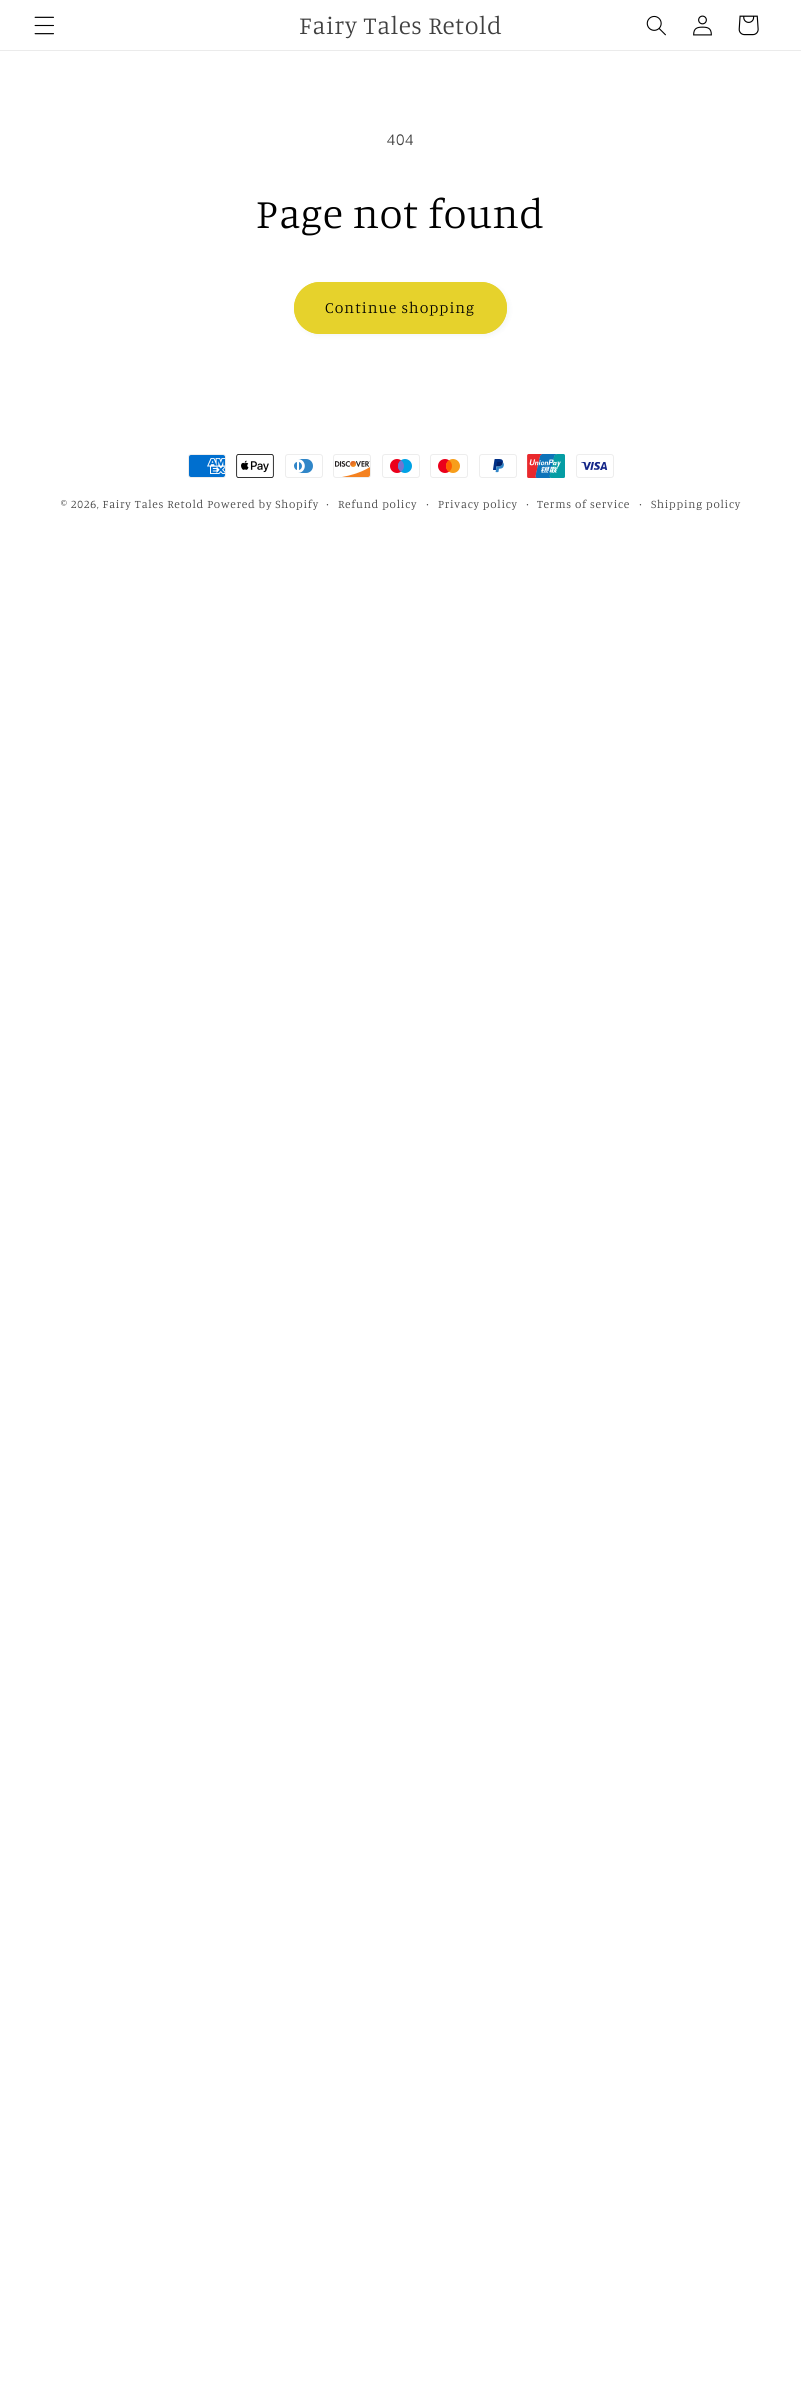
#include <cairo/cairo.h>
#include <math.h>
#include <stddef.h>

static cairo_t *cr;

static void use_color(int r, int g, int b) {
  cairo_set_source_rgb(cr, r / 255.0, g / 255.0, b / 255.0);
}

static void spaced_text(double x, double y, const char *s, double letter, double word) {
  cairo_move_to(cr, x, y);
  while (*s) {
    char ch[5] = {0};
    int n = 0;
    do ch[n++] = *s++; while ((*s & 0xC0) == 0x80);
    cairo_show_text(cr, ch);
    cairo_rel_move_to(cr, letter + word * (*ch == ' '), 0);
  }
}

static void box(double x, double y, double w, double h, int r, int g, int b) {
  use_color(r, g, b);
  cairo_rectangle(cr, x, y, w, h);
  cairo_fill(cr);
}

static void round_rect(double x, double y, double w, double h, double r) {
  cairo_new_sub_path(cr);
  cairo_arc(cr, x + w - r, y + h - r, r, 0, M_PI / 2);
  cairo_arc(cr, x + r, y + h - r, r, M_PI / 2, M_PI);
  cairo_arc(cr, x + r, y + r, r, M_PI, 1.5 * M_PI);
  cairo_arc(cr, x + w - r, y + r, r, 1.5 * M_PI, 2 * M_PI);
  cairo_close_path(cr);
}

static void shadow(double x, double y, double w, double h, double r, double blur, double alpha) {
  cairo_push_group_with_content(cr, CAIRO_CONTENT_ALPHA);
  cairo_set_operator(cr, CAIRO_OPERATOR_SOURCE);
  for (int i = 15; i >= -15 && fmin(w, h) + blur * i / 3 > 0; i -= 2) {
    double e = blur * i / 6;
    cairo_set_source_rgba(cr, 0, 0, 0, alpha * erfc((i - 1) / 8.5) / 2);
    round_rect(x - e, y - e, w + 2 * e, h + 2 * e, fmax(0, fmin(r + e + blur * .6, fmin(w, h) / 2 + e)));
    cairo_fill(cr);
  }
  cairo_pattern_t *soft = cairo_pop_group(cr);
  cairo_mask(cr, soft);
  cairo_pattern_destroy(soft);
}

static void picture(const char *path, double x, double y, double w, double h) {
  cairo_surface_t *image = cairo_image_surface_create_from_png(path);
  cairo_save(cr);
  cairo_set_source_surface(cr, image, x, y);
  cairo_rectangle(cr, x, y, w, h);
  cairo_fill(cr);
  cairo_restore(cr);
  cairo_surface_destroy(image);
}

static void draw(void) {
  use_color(255, 255, 255);
  cairo_paint(cr);
  box(0, 50, 801, 1, 235, 235, 235);
  picture("img_01.png", 34, 16, 20, 19);
  picture("img_02.png", 646, 15, 20, 21);
  picture("img_03.png", 693, 15, 19, 21);
  picture("img_04.png", 738, 15, 21, 21);
  use_color(16, 57, 72);
  shadow(296, 284, 213, 52, 26, 2.5, 0.05);
  use_color(230, 210, 44);
  round_rect(294, 282, 213, 52, 26);
  cairo_fill(cr);
  round_rect(295, 283, 211, 50, 25);
  cairo_stroke(cr);
  picture("img_05.png", 188, 454, 38, 24);
  picture("img_06.png", 236, 454, 38, 24);
  picture("img_07.png", 285, 454, 38, 24);
  picture("img_08.png", 333, 454, 38, 24);
  picture("img_09.png", 382, 454, 38, 24);
  picture("img_10.png", 430, 454, 38, 24);
  picture("img_11.png", 479, 454, 38, 24);
  picture("img_12.png", 527, 454, 38, 24);
  picture("img_13.png", 576, 454, 38, 24);
  cairo_select_font_face(cr, "Manuale Light", CAIRO_FONT_SLANT_NORMAL, CAIRO_FONT_WEIGHT_NORMAL);
  cairo_set_font_size(cr, 25.25);
  use_color(64, 64, 64);
  spaced_text(299, 34, "Fairy Tales Retold", 0.6, 0);
  cairo_set_font_size(cr, 17);
  spaced_text(387, 145, "404", 0.6, 0);
  cairo_set_font_size(cr, 42);
  use_color(0, 0, 0);
  spaced_text(256, 228, "Page not found", 0.6, 0);
  cairo_set_font_size(cr, 15.75);
  spaced_text(325, 313, "Continue shopping", 1, 0);
  cairo_set_font_size(cr, 11.55);
  use_color(64, 64, 64);
  spaced_text(61, 508, "© 2026, Fairy Tales Retold Powered by Shopify", 0.75, 0);
  cairo_set_font_size(cr, 13);
  spaced_text(326, 508, "·", 0.75, 0);
  cairo_set_font_size(cr, 11.55);
  spaced_text(338, 508, "Refund policy", 0.75, 0);
  cairo_set_font_size(cr, 13);
  spaced_text(426, 508, "·", 0.75, 0);
  cairo_set_font_size(cr, 11.55);
  spaced_text(438, 508, "Privacy policy", 0.75, 0);
  cairo_set_font_size(cr, 13);
  spaced_text(526, 508, "·", 0.75, 0);
  cairo_set_font_size(cr, 11.55);
  spaced_text(537, 508, "Terms of service", 0.75, 0);
  cairo_set_font_size(cr, 13);
  spaced_text(639, 508, "·", 0.75, 0);
  cairo_set_font_size(cr, 11.55);
  spaced_text(651, 508, "Shipping policy", 0.75, 0);
}

int main(void) {
  cairo_surface_t *surface = cairo_image_surface_create(CAIRO_FORMAT_RGB24, 801, 2401);
  cr = cairo_create(surface);
  cairo_font_options_t *options = cairo_font_options_create();
  cairo_font_options_set_hint_metrics(options, CAIRO_HINT_METRICS_OFF);
  cairo_font_options_set_hint_style(options, CAIRO_HINT_STYLE_NONE);
  cairo_set_font_options(cr, options);
  cairo_set_miter_limit(cr, 4);
  draw();
  cairo_surface_write_to_png(surface, "out.png");
  cairo_font_options_destroy(options);
  cairo_destroy(cr);
  cairo_surface_destroy(surface);
  return 0;
}
